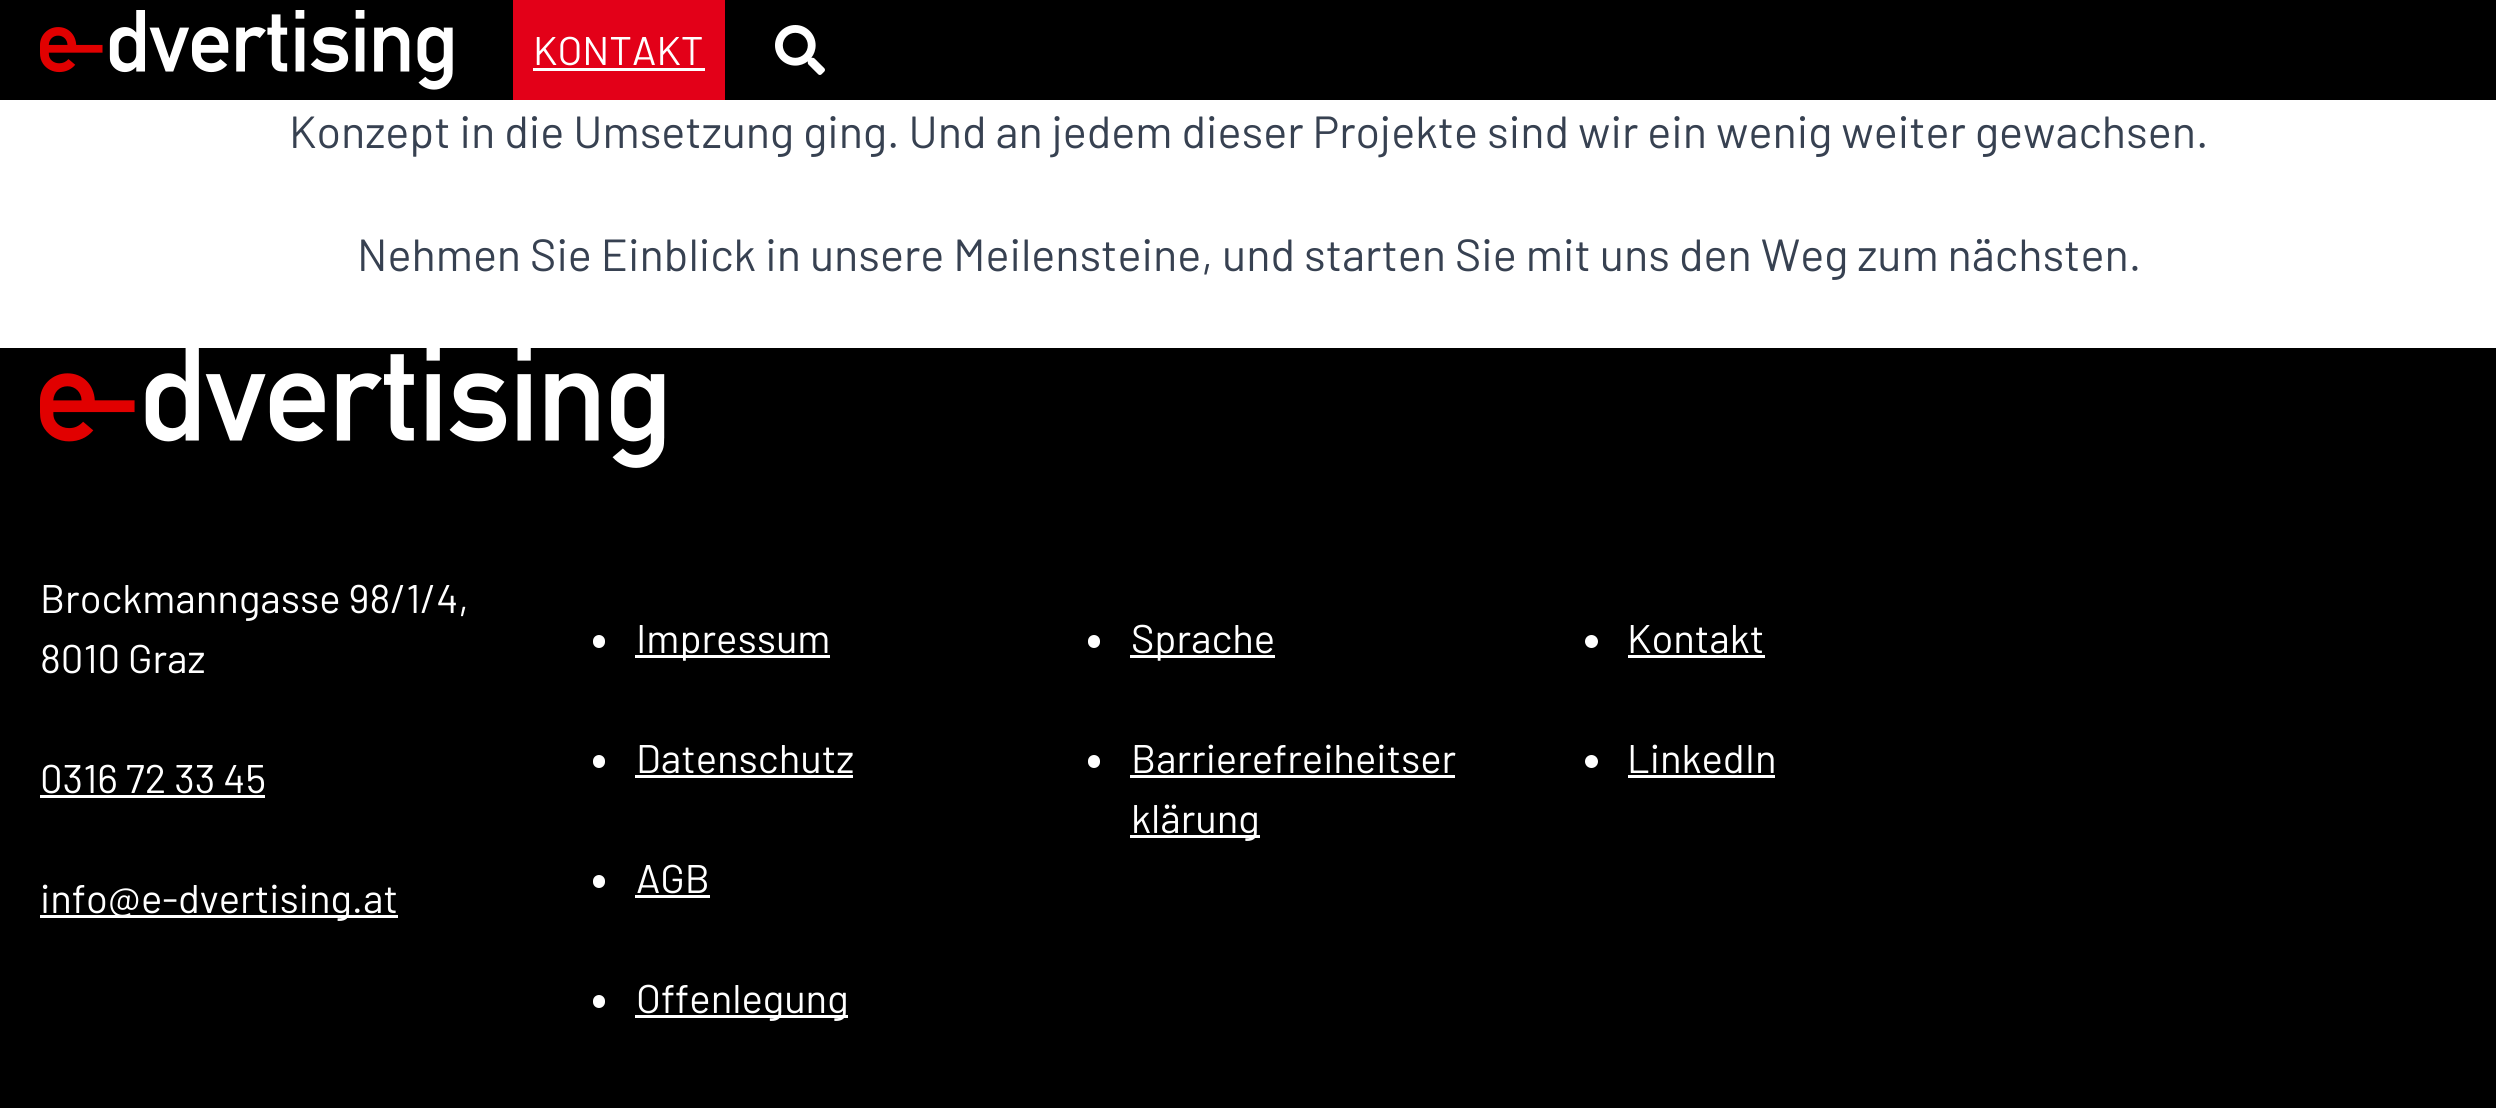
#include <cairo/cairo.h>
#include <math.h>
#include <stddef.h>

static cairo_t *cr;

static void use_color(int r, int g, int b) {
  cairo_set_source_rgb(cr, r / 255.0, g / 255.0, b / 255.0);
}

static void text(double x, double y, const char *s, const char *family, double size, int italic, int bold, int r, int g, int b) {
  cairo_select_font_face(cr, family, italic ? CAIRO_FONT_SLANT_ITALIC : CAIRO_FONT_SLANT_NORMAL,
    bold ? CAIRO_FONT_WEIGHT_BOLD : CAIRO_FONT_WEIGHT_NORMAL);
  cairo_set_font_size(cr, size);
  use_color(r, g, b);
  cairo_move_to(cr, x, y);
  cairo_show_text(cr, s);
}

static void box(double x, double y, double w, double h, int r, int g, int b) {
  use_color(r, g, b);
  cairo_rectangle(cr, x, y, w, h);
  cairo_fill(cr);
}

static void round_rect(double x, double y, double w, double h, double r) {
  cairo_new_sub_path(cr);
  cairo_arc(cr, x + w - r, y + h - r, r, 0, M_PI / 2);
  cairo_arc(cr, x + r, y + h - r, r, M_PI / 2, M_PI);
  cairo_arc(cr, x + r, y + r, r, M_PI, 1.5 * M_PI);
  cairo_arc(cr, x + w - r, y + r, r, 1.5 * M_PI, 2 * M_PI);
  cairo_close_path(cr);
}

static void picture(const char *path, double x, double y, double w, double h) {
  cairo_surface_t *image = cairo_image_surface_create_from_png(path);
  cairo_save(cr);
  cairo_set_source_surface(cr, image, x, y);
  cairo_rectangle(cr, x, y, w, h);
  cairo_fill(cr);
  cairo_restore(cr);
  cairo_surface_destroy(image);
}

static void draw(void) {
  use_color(255, 255, 255);
  cairo_paint(cr);
  box(0, 0, 2496, 100, 0, 0, 0);
  picture("img_01.png", 40, 10, 413, 80);
  box(513, 0, 212, 100, 227, 0, 24);
  box(533, 68, 172, 3, 255, 255, 255);
  picture("img_02.png", 775, 25, 50, 50);
  box(0, 348, 2496, 760, 0, 0, 0);
  picture("img_03.png", 40, 348, 625, 120);
  box(40, 795, 225, 3, 255, 255, 255);
  box(40, 915, 358, 3, 255, 255, 255);
  round_rect(593, 635, 12, 13, 6);
  cairo_fill(cr);
  box(635, 655, 195, 3, 255, 255, 255);
  round_rect(593, 755, 12, 13, 6);
  cairo_fill(cr);
  box(635, 775, 218, 3, 255, 255, 255);
  round_rect(593, 875, 12, 13, 6);
  cairo_fill(cr);
  box(635, 895, 75, 3, 255, 255, 255);
  round_rect(593, 995, 12, 13, 6);
  cairo_fill(cr);
  box(635, 1015, 213, 3, 255, 255, 255);
  round_rect(1088, 635, 12, 13, 6);
  cairo_fill(cr);
  box(1130, 655, 145, 3, 255, 255, 255);
  round_rect(1088, 755, 12, 13, 6);
  cairo_fill(cr);
  box(1130, 775, 325, 3, 255, 255, 255);
  box(1130, 835, 130, 3, 255, 255, 255);
  cairo_arc(cr, 1591.5, 641.5, 6.5, 0, 2 * M_PI);
  cairo_fill(cr);
  box(1628, 655, 137, 3, 255, 255, 255);
  cairo_arc(cr, 1591.5, 761.5, 6.5, 0, 2 * M_PI);
  cairo_fill(cr);
  box(1628, 775, 147, 3, 255, 255, 255);
  text(533, 65, "KONTAKT", "Barlow", 40, 0, 0, 255, 255, 255);
  text(289, 148, "Konzept in die Umsetzung ging. Und an jedem dieser Projekte sind wir ein wenig weiter gewachsen.", "Barlow", 45, 0, 0, 55, 65, 81);
  text(357, 271, "Nehmen Sie Einblick in unsere Meilensteine, und starten Sie mit uns den Weg zum nächsten.", "Barlow", 45, 0, 0, 55, 65, 81);
  text(40, 613, "Brockmanngasse 98/1/4,", "Barlow", 40, 0, 0, 255, 255, 255);
  text(40, 673, "8010 Graz", "Barlow", 40, 0, 0, 255, 255, 255);
  text(40, 793, "0316 72 33 45", "Barlow", 40, 0, 0, 255, 255, 255);
  text(40, 913, "info@e-dvertising.at", "Barlow", 40, 0, 0, 255, 255, 255);
  text(636, 653, "Impressum", "Barlow", 40, 0, 0, 255, 255, 255);
  text(636, 773, "Datenschutz", "Barlow", 40, 0, 0, 255, 255, 255);
  text(636, 893, "AGB", "Barlow", 40, 0, 0, 255, 255, 255);
  text(636, 1013, "Offenlegung", "Barlow", 40, 0, 0, 255, 255, 255);
  text(1131, 653, "Sprache", "Barlow", 40, 0, 0, 255, 255, 255);
  text(1131, 773, "Barrierefreiheitser", "Barlow", 40, 0, 0, 255, 255, 255);
  text(1131, 833, "klärung", "Barlow", 40, 0, 0, 255, 255, 255);
  text(1627, 653, "Kontakt", "Barlow", 40, 0, 0, 255, 255, 255);
  text(1627, 773, "LinkedIn", "Barlow", 40, 0, 0, 255, 255, 255);
}

int main(void) {
  cairo_surface_t *surface = cairo_image_surface_create(CAIRO_FORMAT_RGB24, 2496, 1108);
  cr = cairo_create(surface);
  cairo_font_options_t *options = cairo_font_options_create();
  cairo_font_options_set_hint_metrics(options, CAIRO_HINT_METRICS_OFF);
  cairo_font_options_set_hint_style(options, CAIRO_HINT_STYLE_NONE);
  cairo_set_font_options(cr, options);
  cairo_set_miter_limit(cr, 4);
  draw();
  cairo_surface_write_to_png(surface, "out.png");
  cairo_font_options_destroy(options);
  cairo_destroy(cr);
  cairo_surface_destroy(surface);
  return 0;
}
